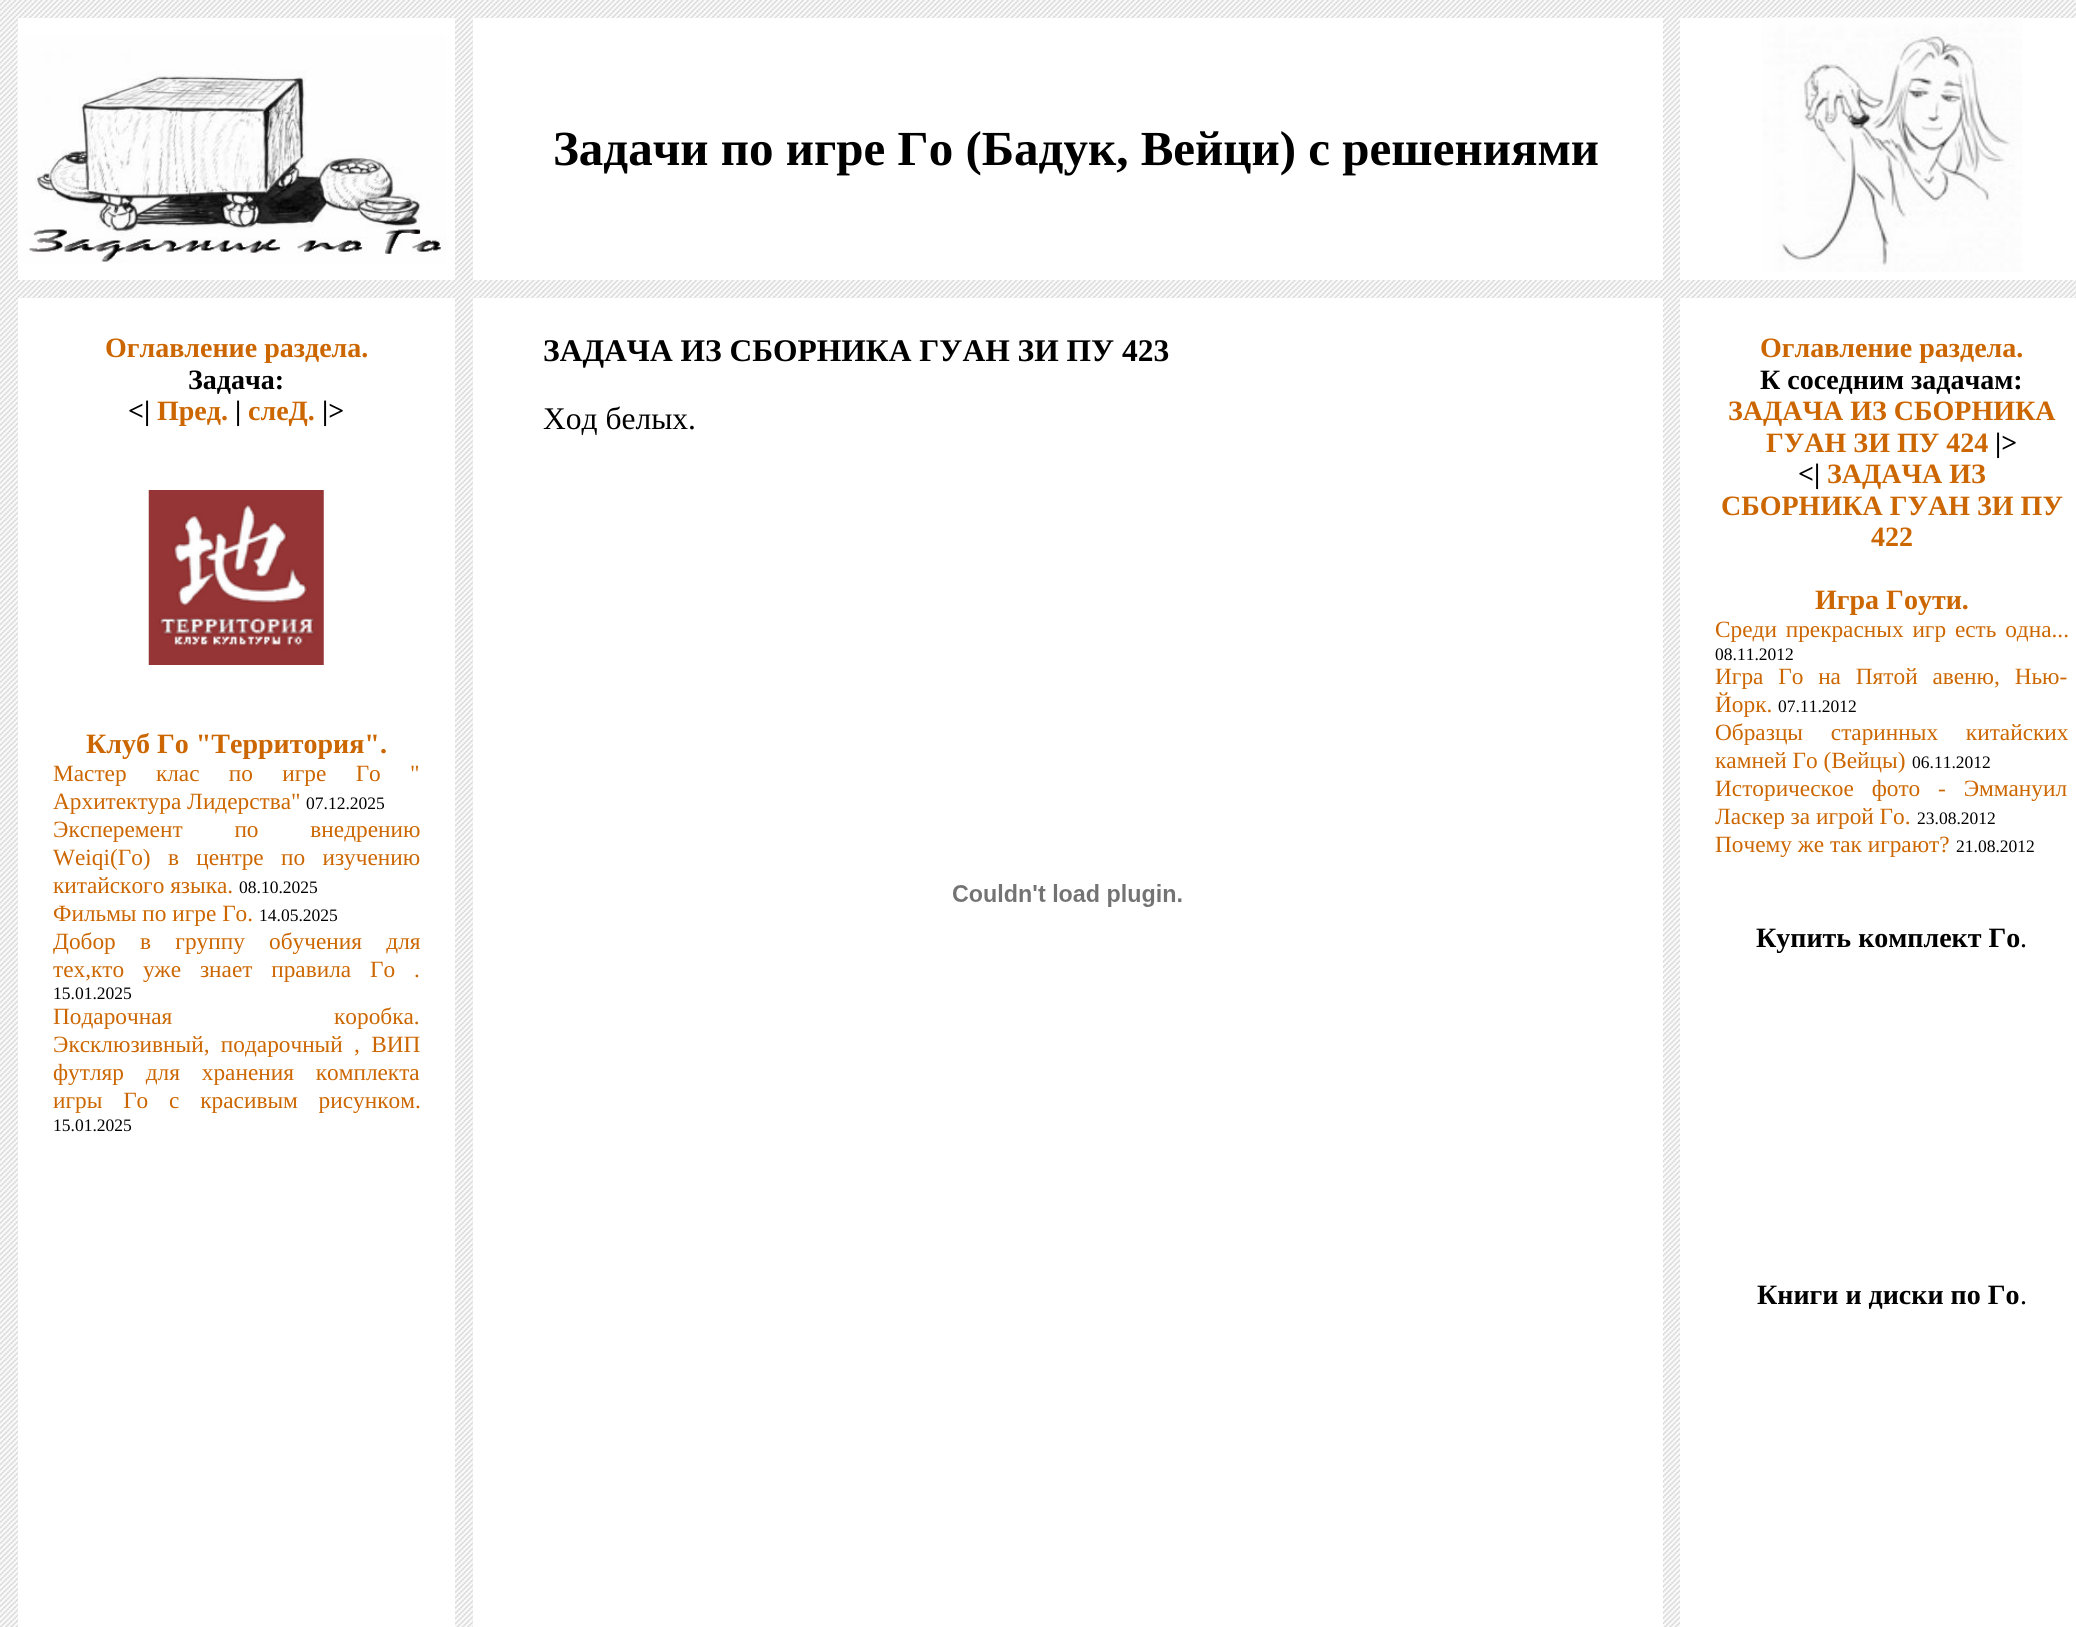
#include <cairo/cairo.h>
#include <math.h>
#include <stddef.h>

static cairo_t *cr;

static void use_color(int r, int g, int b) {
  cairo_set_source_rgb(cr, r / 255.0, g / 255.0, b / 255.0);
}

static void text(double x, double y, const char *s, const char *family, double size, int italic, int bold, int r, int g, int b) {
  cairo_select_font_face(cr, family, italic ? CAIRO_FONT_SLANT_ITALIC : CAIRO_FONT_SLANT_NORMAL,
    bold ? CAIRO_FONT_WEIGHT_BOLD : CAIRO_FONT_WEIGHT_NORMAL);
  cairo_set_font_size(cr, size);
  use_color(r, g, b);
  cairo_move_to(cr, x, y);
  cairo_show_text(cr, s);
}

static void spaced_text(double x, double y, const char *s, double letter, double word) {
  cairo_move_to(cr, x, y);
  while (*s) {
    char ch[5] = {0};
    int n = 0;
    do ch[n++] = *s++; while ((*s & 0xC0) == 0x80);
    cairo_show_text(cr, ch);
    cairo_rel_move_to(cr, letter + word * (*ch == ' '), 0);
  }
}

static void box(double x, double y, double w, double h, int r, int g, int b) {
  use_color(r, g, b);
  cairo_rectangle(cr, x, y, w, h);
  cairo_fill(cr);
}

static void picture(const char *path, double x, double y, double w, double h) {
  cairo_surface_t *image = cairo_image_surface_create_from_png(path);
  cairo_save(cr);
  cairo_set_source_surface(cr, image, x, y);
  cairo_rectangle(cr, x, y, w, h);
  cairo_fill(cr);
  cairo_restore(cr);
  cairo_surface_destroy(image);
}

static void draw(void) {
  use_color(255, 255, 255);
  cairo_paint(cr);
  picture("img_01.png", 0, 0, 2076, 1627);
  box(18, 18, 437, 262, 255, 255, 255);
  picture("img_02.png", 17, 35, 429, 228);
  box(473, 18, 1190, 262, 255, 255, 255);
  box(1680, 18, 396, 262, 255, 255, 255);
  picture("img_03.png", 1762, 17, 260, 255);
  box(18, 298, 437, 1329, 255, 255, 255);
  picture("img_04.png", 148, 490, 176, 175);
  box(473, 298, 1190, 1329, 255, 255, 255);
  picture("img_05.png", 953, 884, 229, 23);
  box(1680, 298, 396, 1329, 255, 255, 255);
  text(553, 165, "Задачи по игре Го (Бадук, Вейци) с решениями", "Liberation Serif", 49, 0, 1, 0, 0, 0);
  text(105, 357, "Оглавление раздела.", "Liberation Serif", 28, 0, 1, 204, 102, 0);
  text(188, 389, "Задача:", "Liberation Serif", 28, 0, 1, 0, 0, 0);
  text(128, 420, "<|", "Liberation Serif", 28, 0, 1, 0, 0, 0);
  text(157, 420, "Пред.", "Liberation Serif", 28, 0, 1, 204, 102, 0);
  text(235, 420, "|", "Liberation Serif", 28, 0, 1, 0, 0, 0);
  text(248, 420, "слеД.", "Liberation Serif", 28, 0, 1, 204, 102, 0);
  text(322, 420, "|>", "Liberation Serif", 28, 0, 1, 0, 0, 0);
  text(86, 753, "Клуб Го \"Территория\".", "Liberation Serif", 28, 0, 1, 204, 102, 0);
  cairo_select_font_face(cr, "Liberation Serif", CAIRO_FONT_SLANT_NORMAL, CAIRO_FONT_WEIGHT_NORMAL);
  cairo_set_font_size(cr, 23.3);
  spaced_text(53, 781, "Мастер клас по игре Го \"", 0, 23.5);
  text(53, 809, "Архитектура Лидерства\"", "Liberation Serif", 23.3, 0, 0, 204, 102, 0);
  text(306, 809, "07.12.2025", "Liberation Serif", 17.5, 0, 0, 0, 0, 0);
  cairo_set_font_size(cr, 23.3);
  use_color(204, 102, 0);
  spaced_text(53, 837, "Эксперемент по внедрению", 0, 46);
  spaced_text(53, 865, "Weiqi(Го) в центре по изучению", 0, 11.5);
  text(53, 893, "китайского языка.", "Liberation Serif", 23.3, 0, 0, 204, 102, 0);
  text(239, 893, "08.10.2025", "Liberation Serif", 17.5, 0, 0, 0, 0, 0);
  text(53, 921, "Фильмы по игре Го.", "Liberation Serif", 23.3, 0, 0, 204, 102, 0);
  text(259, 921, "14.05.2025", "Liberation Serif", 17.5, 0, 0, 0, 0, 0);
  cairo_set_font_size(cr, 23.3);
  use_color(204, 102, 0);
  spaced_text(53, 949, "Добор в группу обучения для", 0, 18.5);
  spaced_text(53, 977, "тех,кто уже знает правила Го .", 0, 13);
  text(53, 999, "15.01.2025", "Liberation Serif", 17.5, 0, 0, 0, 0, 0);
  cairo_set_font_size(cr, 23.3);
  use_color(204, 102, 0);
  spaced_text(53, 1024, "Подарочная коробка.", 0, 156);
  spaced_text(53, 1052, "Эксклюзивный, подарочный , ВИП", 0, 5.5);
  spaced_text(53, 1080, "футляр для хранения комплекта", 0, 16);
  spaced_text(53, 1108, "игры Го с красивым рисунком.", 0, 15);
  text(53, 1131, "15.01.2025", "Liberation Serif", 17.5, 0, 0, 0, 0, 0);
  text(543, 361, "ЗАДАЧА ИЗ СБОРНИКА ГУАН ЗИ ПУ 423", "Liberation Serif", 31.5, 0, 1, 0, 0, 0);
  text(543, 429, "Ход белых.", "Liberation Serif", 31.5, 0, 0, 0, 0, 0);
  text(1760, 357, "Оглавление раздела.", "Liberation Serif", 28, 0, 1, 204, 102, 0);
  text(1760, 389, "К соседним задачам:", "Liberation Serif", 28, 0, 1, 0, 0, 0);
  text(1728, 420, "ЗАДАЧА ИЗ СБОРНИКА", "Liberation Serif", 28, 0, 1, 204, 102, 0);
  text(1766, 452, "ГУАН ЗИ ПУ 424", "Liberation Serif", 28, 0, 1, 204, 102, 0);
  text(1995, 452, "|>", "Liberation Serif", 28, 0, 1, 0, 0, 0);
  text(1798, 483, "<|", "Liberation Serif", 28, 0, 1, 0, 0, 0);
  text(1827, 483, "ЗАДАЧА ИЗ", "Liberation Serif", 28, 0, 1, 204, 102, 0);
  text(1721, 515, "СБОРНИКА ГУАН ЗИ ПУ", "Liberation Serif", 28, 0, 1, 204, 102, 0);
  text(1871, 546, "422", "Liberation Serif", 28, 0, 1, 204, 102, 0);
  text(1815, 609, "Игра Гоути.", "Liberation Serif", 28, 0, 1, 204, 102, 0);
  cairo_select_font_face(cr, "Liberation Serif", CAIRO_FONT_SLANT_NORMAL, CAIRO_FONT_WEIGHT_NORMAL);
  cairo_set_font_size(cr, 23.3);
  spaced_text(1715, 637, "Среди прекрасных игр есть одна...", 0, 3);
  text(1715, 660, "08.11.2012", "Liberation Serif", 17.5, 0, 0, 0, 0, 0);
  cairo_set_font_size(cr, 23.3);
  use_color(204, 102, 0);
  spaced_text(1715, 684, "Игра Го на Пятой авеню, Нью-", 0, 9);
  text(1715, 712, "Йорк.", "Liberation Serif", 23.3, 0, 0, 204, 102, 0);
  text(1778, 712, "07.11.2012", "Liberation Serif", 17.5, 0, 0, 0, 0, 0);
  cairo_set_font_size(cr, 23.3);
  use_color(204, 102, 0);
  spaced_text(1715, 740, "Образцы старинных китайских", 0, 22);
  text(1715, 768, "камней Го (Вейцы)", "Liberation Serif", 23.3, 0, 0, 204, 102, 0);
  text(1912, 768, "06.11.2012", "Liberation Serif", 17.5, 0, 0, 0, 0, 0);
  cairo_set_font_size(cr, 23.3);
  use_color(204, 102, 0);
  spaced_text(1715, 796, "Историческое фото - Эммануил", 0, 12);
  text(1715, 824, "Ласкер за игрой Го.", "Liberation Serif", 23.3, 0, 0, 204, 102, 0);
  text(1917, 824, "23.08.2012", "Liberation Serif", 17.5, 0, 0, 0, 0, 0);
  text(1715, 852, "Почему же так играют?", "Liberation Serif", 23.3, 0, 0, 204, 102, 0);
  text(1956, 852, "21.08.2012", "Liberation Serif", 17.5, 0, 0, 0, 0, 0);
  text(1756, 947, "Купить комплект Го", "Liberation Serif", 28, 0, 1, 0, 0, 0);
  text(2020, 947, ".", "Liberation Serif", 28, 0, 0, 0, 0, 0);
  text(1757, 1304, "Книги и диски по Го", "Liberation Serif", 28, 0, 1, 0, 0, 0);
  text(2020, 1304, ".", "Liberation Serif", 28, 0, 0, 0, 0, 0);
}

int main(void) {
  cairo_surface_t *surface = cairo_image_surface_create(CAIRO_FORMAT_RGB24, 2076, 1627);
  cr = cairo_create(surface);
  cairo_font_options_t *options = cairo_font_options_create();
  cairo_font_options_set_hint_metrics(options, CAIRO_HINT_METRICS_OFF);
  cairo_font_options_set_hint_style(options, CAIRO_HINT_STYLE_NONE);
  cairo_set_font_options(cr, options);
  cairo_set_miter_limit(cr, 4);
  draw();
  cairo_surface_write_to_png(surface, "out.png");
  cairo_font_options_destroy(options);
  cairo_destroy(cr);
  cairo_surface_destroy(surface);
  return 0;
}
